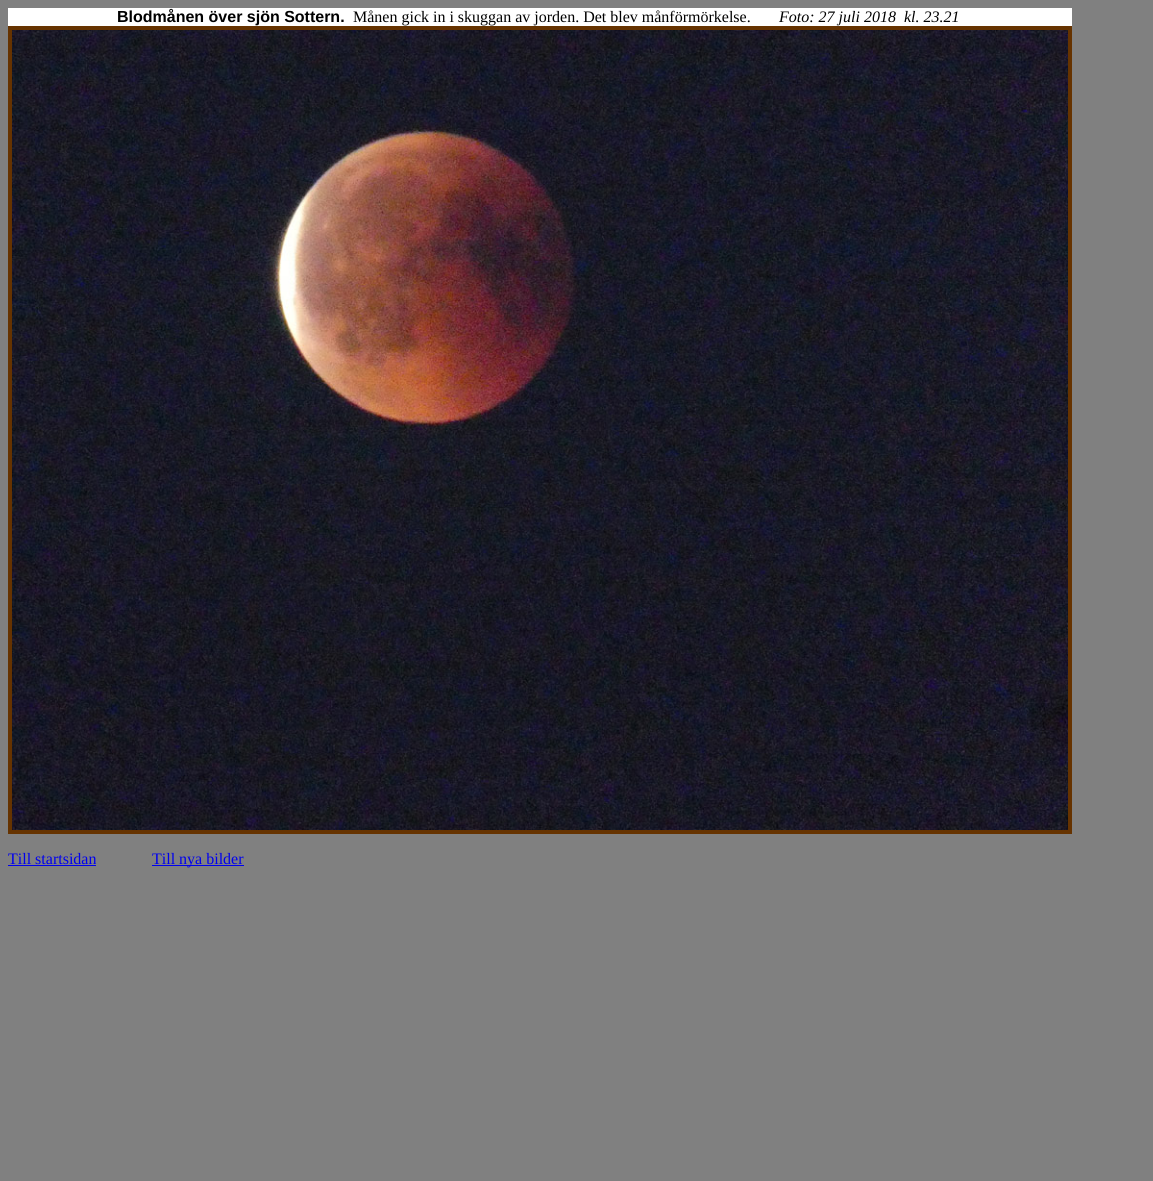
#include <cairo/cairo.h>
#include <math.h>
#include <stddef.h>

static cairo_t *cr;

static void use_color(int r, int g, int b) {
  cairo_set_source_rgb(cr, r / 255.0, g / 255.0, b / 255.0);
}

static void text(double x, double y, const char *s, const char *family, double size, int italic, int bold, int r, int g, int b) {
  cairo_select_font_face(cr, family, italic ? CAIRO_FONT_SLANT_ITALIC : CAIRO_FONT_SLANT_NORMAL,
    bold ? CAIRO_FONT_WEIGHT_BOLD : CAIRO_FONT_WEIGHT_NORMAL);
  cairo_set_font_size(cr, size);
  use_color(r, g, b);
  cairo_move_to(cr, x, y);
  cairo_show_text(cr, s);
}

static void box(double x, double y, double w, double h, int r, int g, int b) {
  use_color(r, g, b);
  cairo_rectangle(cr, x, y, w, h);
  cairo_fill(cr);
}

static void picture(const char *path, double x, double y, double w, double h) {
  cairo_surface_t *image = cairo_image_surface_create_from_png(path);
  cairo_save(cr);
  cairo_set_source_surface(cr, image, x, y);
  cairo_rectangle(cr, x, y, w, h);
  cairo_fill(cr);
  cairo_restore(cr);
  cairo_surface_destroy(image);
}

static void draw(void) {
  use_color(128, 128, 128);
  cairo_paint(cr);
  box(8, 8, 1064, 18, 255, 255, 255);
  cairo_rectangle(cr, 9.5, 27.5, 1061, 805);
  use_color(102, 51, 0);
  cairo_set_line_width(cr, 3);
  cairo_stroke(cr);
  cairo_rectangle(cr, 11.5, 29.5, 1057, 801);
  cairo_set_line_width(cr, 1);
  cairo_stroke(cr);
  picture("img_01.png", 12, 30, 1056, 800);
  box(8, 865, 88, 1, 0, 0, 238);
  box(152, 865, 92, 1, 0, 0, 238);
  text(117, 22, "Blodmånen över sjön Sottern.", "Liberation Sans", 16, 0, 1, 0, 0, 0);
  text(353, 22, "Månen gick in i skuggan av jorden. Det blev månförmörkelse.", "Liberation Serif", 16, 0, 0, 0, 0, 0);
  text(779, 22, "Foto: 27 juli 2018", "Liberation Serif", 16, 1, 0, 0, 0, 0);
  text(904, 22, "kl. 23.21", "Liberation Serif", 16, 1, 0, 0, 0, 0);
  text(8, 864, "Till startsidan", "Liberation Serif", 16, 0, 0, 0, 0, 238);
  text(152, 864, "Till nya bilder", "Liberation Serif", 16, 0, 0, 0, 0, 238);
}

int main(void) {
  cairo_surface_t *surface = cairo_image_surface_create(CAIRO_FORMAT_RGB24, 1153, 1181);
  cr = cairo_create(surface);
  cairo_font_options_t *options = cairo_font_options_create();
  cairo_font_options_set_hint_metrics(options, CAIRO_HINT_METRICS_OFF);
  cairo_font_options_set_hint_style(options, CAIRO_HINT_STYLE_NONE);
  cairo_set_font_options(cr, options);
  cairo_set_miter_limit(cr, 4);
  draw();
  cairo_surface_write_to_png(surface, "out.png");
  cairo_font_options_destroy(options);
  cairo_destroy(cr);
  cairo_surface_destroy(surface);
  return 0;
}
